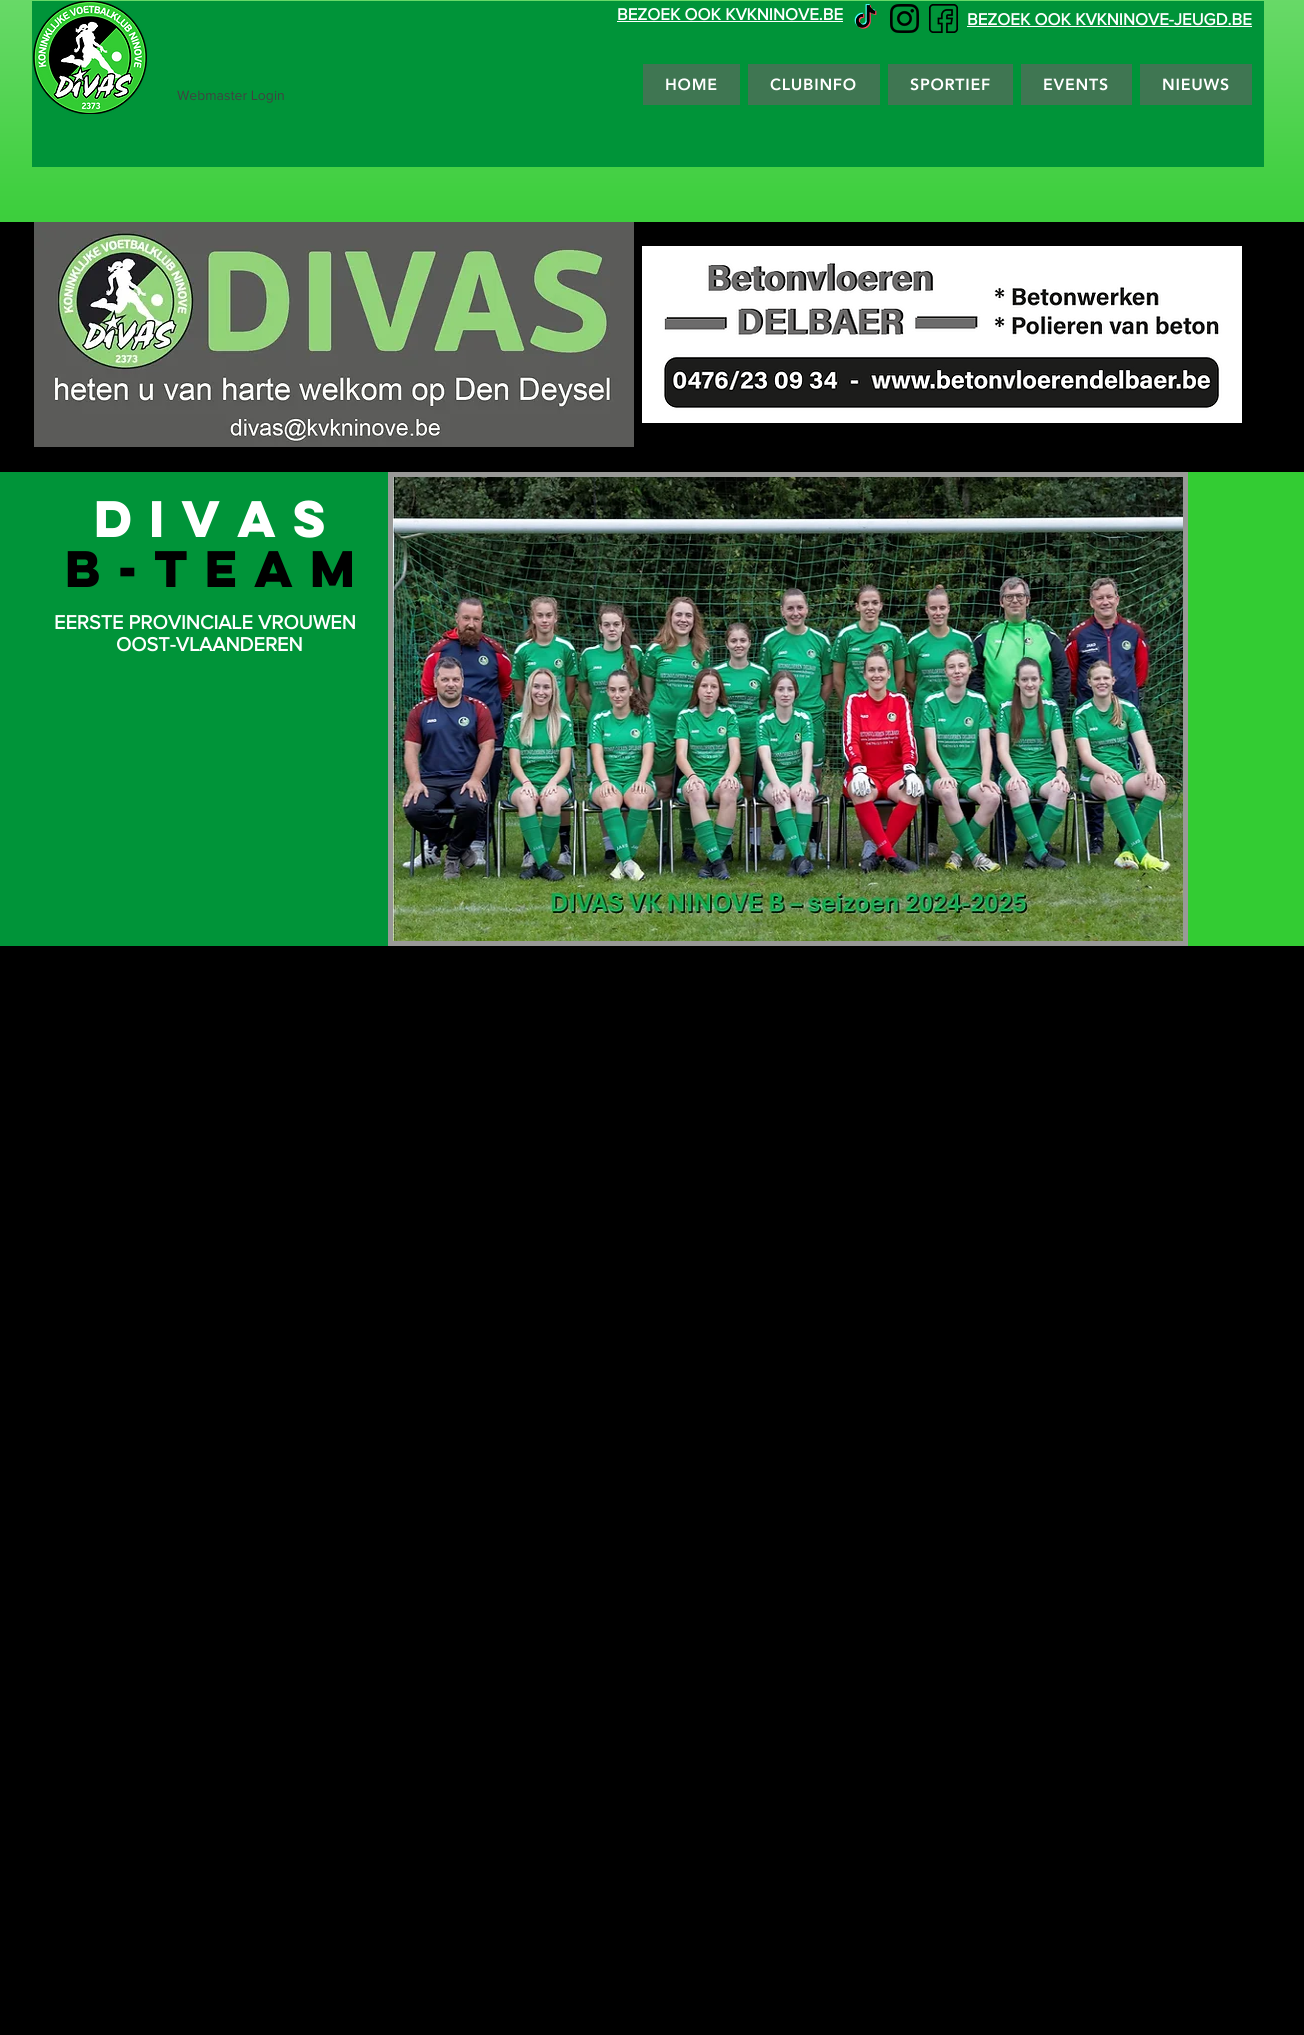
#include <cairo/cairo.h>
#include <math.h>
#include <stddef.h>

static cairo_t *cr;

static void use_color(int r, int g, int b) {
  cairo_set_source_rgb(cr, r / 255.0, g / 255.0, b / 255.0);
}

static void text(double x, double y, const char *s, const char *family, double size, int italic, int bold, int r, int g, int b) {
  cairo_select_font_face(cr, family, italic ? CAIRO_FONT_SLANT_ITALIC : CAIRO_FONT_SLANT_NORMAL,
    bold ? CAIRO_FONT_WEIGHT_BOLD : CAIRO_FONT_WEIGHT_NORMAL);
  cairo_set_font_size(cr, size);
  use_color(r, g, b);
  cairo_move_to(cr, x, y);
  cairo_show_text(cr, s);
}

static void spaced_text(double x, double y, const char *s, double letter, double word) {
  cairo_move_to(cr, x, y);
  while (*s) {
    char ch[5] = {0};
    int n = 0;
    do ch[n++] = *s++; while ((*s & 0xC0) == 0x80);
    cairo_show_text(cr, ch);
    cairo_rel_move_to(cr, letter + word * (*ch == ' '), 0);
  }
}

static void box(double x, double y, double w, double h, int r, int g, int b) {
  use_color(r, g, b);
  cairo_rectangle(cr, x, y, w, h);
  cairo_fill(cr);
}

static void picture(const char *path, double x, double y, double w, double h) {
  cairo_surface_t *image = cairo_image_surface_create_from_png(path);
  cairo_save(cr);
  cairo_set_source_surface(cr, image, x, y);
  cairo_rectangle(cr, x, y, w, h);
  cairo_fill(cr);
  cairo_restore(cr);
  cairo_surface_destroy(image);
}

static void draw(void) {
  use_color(0, 0, 0);
  cairo_paint(cr);
  box(0, 0, 1304, 222, 51, 204, 51);
  picture("img_01.png", 0, 0, 1304, 222);
  box(32, 1, 1232, 166, 0, 148, 57);
  picture("img_02.png", 33, 1, 114, 113);
  box(617, 21, 226, 1, 255, 255, 255);
  picture("img_03.png", 854, 4, 23, 25);
  picture("img_04.png", 890, 4, 29, 29);
  picture("img_05.png", 929, 4, 29, 29);
  box(967, 26, 285, 1, 255, 255, 255);
  box(643, 64, 97, 41, 63, 118, 82);
  box(748, 64, 132, 41, 63, 118, 82);
  box(888, 64, 125, 41, 63, 118, 82);
  box(1021, 64, 111, 41, 63, 118, 82);
  box(1140, 64, 112, 41, 63, 118, 82);
  picture("img_06.png", 34, 222, 600, 225);
  picture("img_07.png", 642, 246, 600, 177);
  box(0, 472, 388, 474, 0, 148, 57);
  box(388, 472, 800, 474, 153, 153, 151);
  picture("img_08.png", 393, 477, 790, 464);
  box(1188, 472, 116, 474, 51, 204, 51);
  text(617, 20, "BEZOEK OOK KVKNINOVE.BE", "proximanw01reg", 17, 0, 1, 255, 255, 255);
  text(967, 25, "BEZOEK OOK KVKNINOVE-JEUGD.BE", "proximanw01reg", 17, 0, 1, 255, 255, 255);
  cairo_select_font_face(cr, "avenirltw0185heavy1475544 Black", CAIRO_FONT_SLANT_NORMAL, CAIRO_FONT_WEIGHT_NORMAL);
  cairo_set_font_size(cr, 16);
  spaced_text(665, 90, "HOME", 0.75, 0);
  spaced_text(770, 90, "CLUBINFO", 0.75, 0);
  spaced_text(910, 90, "SPORTIEF", 0.75, 0);
  spaced_text(1043, 90, "EVENTS", 0.75, 0);
  spaced_text(1162, 90, "NIEUWS", 0.75, 0);
  text(177, 100, "Webmaster Login", "proximanw01reg", 14, 0, 0, 65, 65, 65);
  cairo_select_font_face(cr, "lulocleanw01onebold", CAIRO_FONT_SLANT_NORMAL, CAIRO_FONT_WEIGHT_BOLD);
  cairo_set_font_size(cr, 46);
  use_color(255, 255, 255);
  spaced_text(94, 537, "DIVAS", 7, 0);
  use_color(0, 0, 0);
  spaced_text(65, 587, "B-TEAM", 7, 0);
  text(54, 629, "EERSTE PROVINCIALE VROUWEN", "proximanw01reg", 20, 0, 1, 255, 255, 255);
  text(116, 651, "OOST-VLAANDEREN", "proximanw01reg", 20, 0, 1, 255, 255, 255);
}

int main(void) {
  cairo_surface_t *surface = cairo_image_surface_create(CAIRO_FORMAT_RGB24, 1304, 2035);
  cr = cairo_create(surface);
  cairo_font_options_t *options = cairo_font_options_create();
  cairo_font_options_set_hint_metrics(options, CAIRO_HINT_METRICS_OFF);
  cairo_font_options_set_hint_style(options, CAIRO_HINT_STYLE_NONE);
  cairo_set_font_options(cr, options);
  cairo_set_miter_limit(cr, 4);
  draw();
  cairo_surface_write_to_png(surface, "out.png");
  cairo_font_options_destroy(options);
  cairo_destroy(cr);
  cairo_surface_destroy(surface);
  return 0;
}
